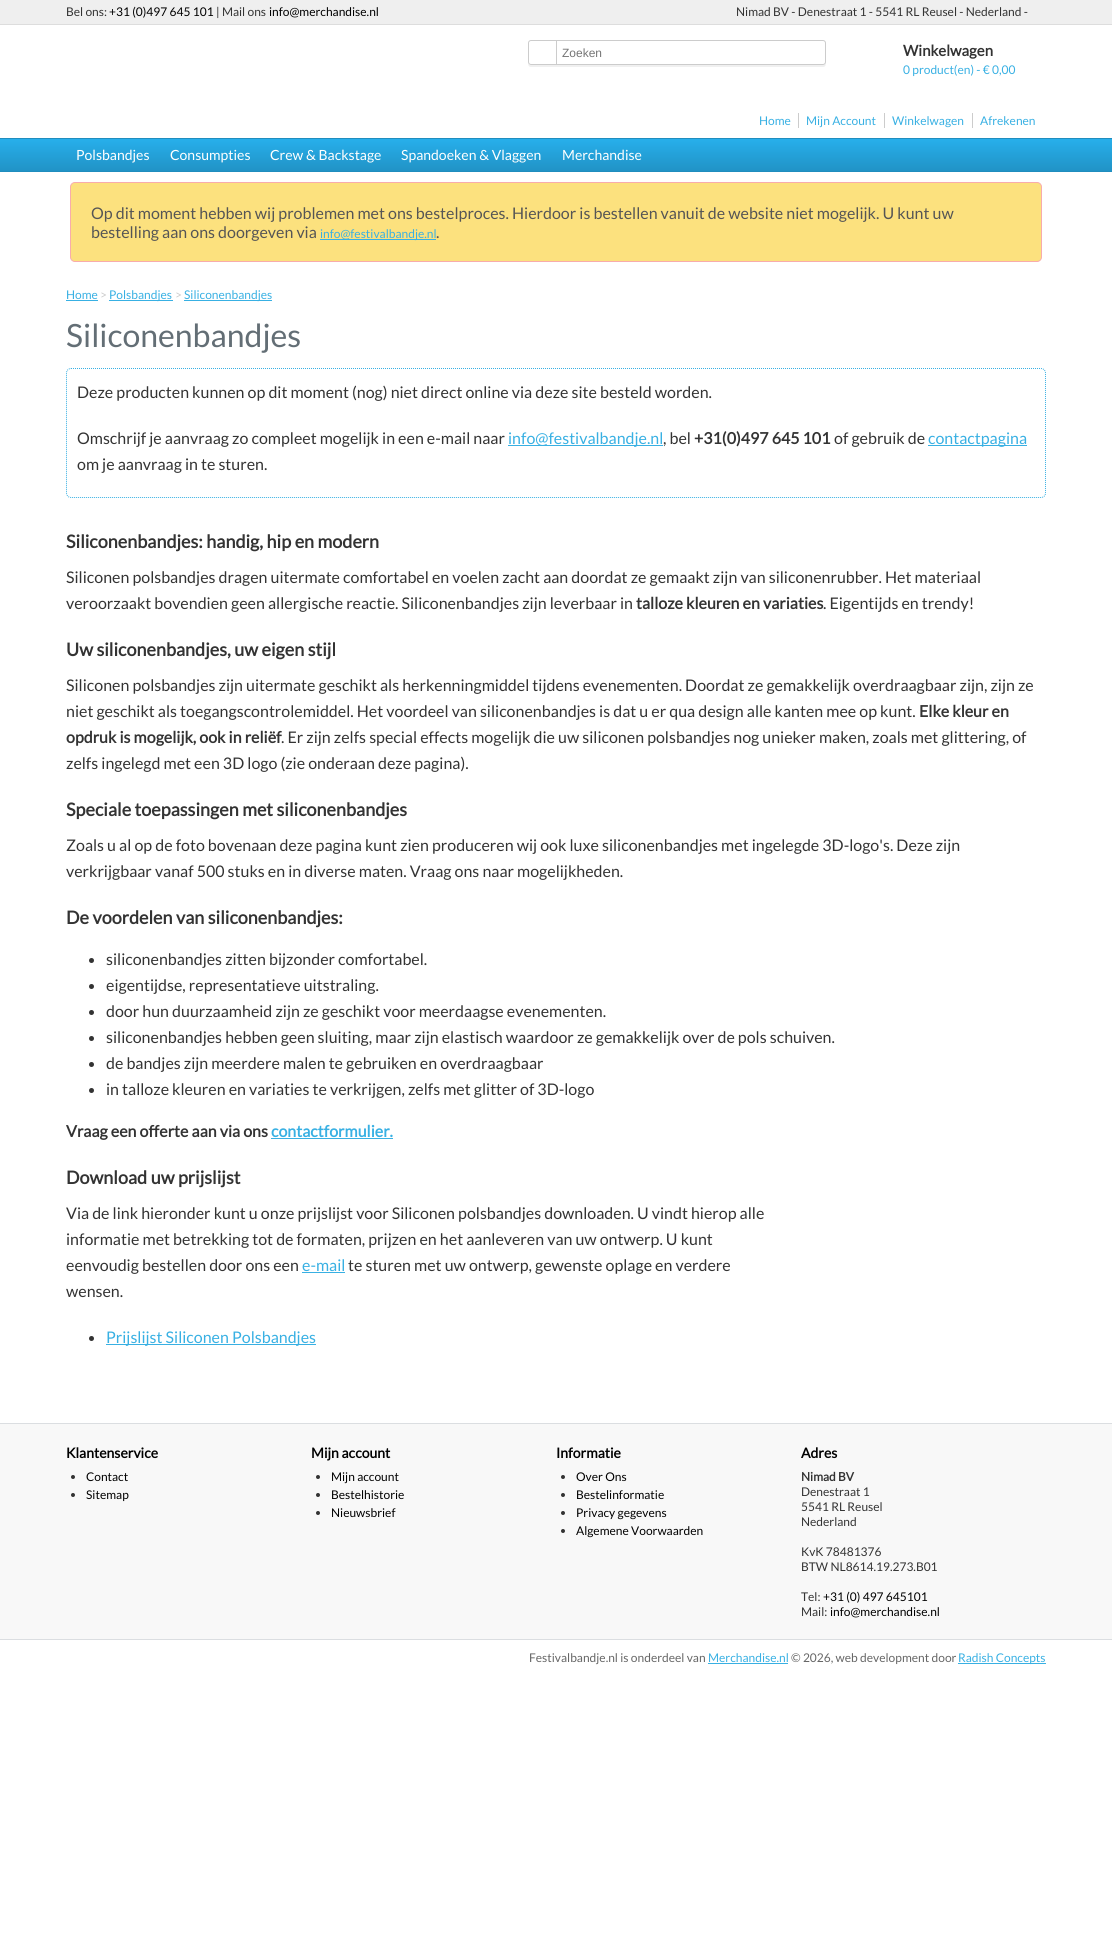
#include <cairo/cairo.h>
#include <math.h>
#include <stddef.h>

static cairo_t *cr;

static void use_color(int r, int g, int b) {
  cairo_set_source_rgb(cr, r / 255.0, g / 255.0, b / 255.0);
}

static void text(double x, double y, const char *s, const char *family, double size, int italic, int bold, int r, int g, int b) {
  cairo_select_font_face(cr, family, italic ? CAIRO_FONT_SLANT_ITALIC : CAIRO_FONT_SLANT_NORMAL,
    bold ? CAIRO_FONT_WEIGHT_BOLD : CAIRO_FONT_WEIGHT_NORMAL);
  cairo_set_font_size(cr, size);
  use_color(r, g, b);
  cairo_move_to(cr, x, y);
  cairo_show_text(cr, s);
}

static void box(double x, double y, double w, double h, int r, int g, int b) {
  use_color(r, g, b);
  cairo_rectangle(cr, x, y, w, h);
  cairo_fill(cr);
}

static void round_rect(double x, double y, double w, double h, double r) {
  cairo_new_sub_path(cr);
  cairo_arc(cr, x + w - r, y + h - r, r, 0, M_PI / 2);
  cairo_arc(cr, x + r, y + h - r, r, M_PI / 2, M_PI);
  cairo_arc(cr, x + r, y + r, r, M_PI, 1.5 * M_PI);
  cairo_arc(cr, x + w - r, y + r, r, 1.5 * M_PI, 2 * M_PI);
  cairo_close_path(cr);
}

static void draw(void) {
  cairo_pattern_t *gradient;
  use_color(255, 255, 255);
  cairo_paint(cr);
  box(0, 0, 1112, 24, 239, 239, 239);
  box(0, 24, 1112, 1, 221, 221, 221);
  use_color(240, 240, 240);
  cairo_new_path(cr);
  cairo_move_to(cr, 528, 62);
  cairo_curve_to(cr, 528, 64, 528, 67, 531, 67);
  cairo_line_to(cr, 823, 67);
  cairo_curve_to(cr, 826, 67, 826, 64, 826, 62);
  cairo_curve_to(cr, 826, 64, 825, 65, 823, 65);
  cairo_line_to(cr, 531, 65);
  cairo_curve_to(cr, 529, 65, 528, 64, 528, 62);
  cairo_close_path(cr);
  cairo_fill(cr);
  round_rect(528.5, 40.5, 297, 24, 2.5);
  use_color(204, 204, 204);
  cairo_set_line_width(cr, 1);
  cairo_stroke(cr);
  box(556, 40, 1, 24, 204, 204, 204);
  box(798, 113, 1, 15, 204, 204, 204);
  box(884, 113, 1, 15, 204, 204, 204);
  box(972, 113, 1, 15, 204, 204, 204);
  gradient = cairo_pattern_create_linear(556, 139, 556, 171);
  cairo_pattern_add_color_stop_rgba(gradient, 0, 0.153, 0.686, 0.922, 1);
  cairo_pattern_add_color_stop_rgba(gradient, 1, 0.129, 0.576, 0.776, 1);
  cairo_set_source(cr, gradient);
  cairo_pattern_destroy(gradient);
  cairo_rectangle(cr, 0, 139, 1112, 32);
  cairo_fill(cr);
  box(0, 138, 1112, 1, 32, 141, 190);
  box(0, 171, 1112, 1, 32, 141, 190);
  use_color(252, 225, 126);
  round_rect(70.5, 182.5, 971, 79, 4.5);
  cairo_fill_preserve(cr);
  use_color(248, 172, 172);
  cairo_stroke(cr);
  box(320, 239, 116, 1, 56, 176, 227);
  box(66, 300, 32, 1, 56, 176, 227);
  box(109, 300, 64, 1, 56, 176, 227);
  box(184, 300, 88, 1, 56, 176, 227);
  cairo_new_path(cr);
  cairo_move_to(cr, 71, 368.5);
  cairo_line_to(cr, 1041, 368.5);
  cairo_curve_to(cr, 1043.5, 368.5, 1045.5, 370.5, 1045.5, 373);
  cairo_line_to(cr, 1045.5, 493);
  cairo_curve_to(cr, 1045.5, 495.5, 1043.5, 497.5, 1041, 497.5);
  cairo_line_to(cr, 71, 497.5);
  cairo_curve_to(cr, 68.5, 497.5, 66.5, 495.5, 66.5, 493);
  cairo_line_to(cr, 66.5, 373);
  cairo_curve_to(cr, 66.5, 370.5, 68.5, 368.5, 71, 368.5);
  cairo_close_path(cr);
  cairo_set_dash(cr, (double[]){1, 1}, 2, 0);
  cairo_stroke(cr);
  box(508, 445, 155, 1, 56, 176, 227);
  box(928, 445, 99, 1, 56, 176, 227);
  use_color(51, 51, 51);
  cairo_arc(cr, 91.5, 960.5, 2.5, 0, 2 * M_PI);
  cairo_fill(cr);
  cairo_arc(cr, 91.5, 986.5, 2.5, 0, 2 * M_PI);
  cairo_fill(cr);
  cairo_arc(cr, 91.5, 1012.5, 2.5, 0, 2 * M_PI);
  cairo_fill(cr);
  cairo_arc(cr, 91.5, 1038.5, 2.5, 0, 2 * M_PI);
  cairo_fill(cr);
  cairo_arc(cr, 91.5, 1064.5, 2.5, 0, 2 * M_PI);
  cairo_fill(cr);
  cairo_arc(cr, 91.5, 1090.5, 2.5, 0, 2 * M_PI);
  cairo_fill(cr);
  box(271, 1138, 122, 1, 56, 176, 227);
  box(302, 1272, 43, 1, 56, 176, 227);
  use_color(51, 51, 51);
  cairo_arc(cr, 91.5, 1338.5, 2.5, 0, 2 * M_PI);
  cairo_fill(cr);
  box(106, 1344, 210, 1, 56, 176, 227);
  box(0, 1424, 1112, 215, 248, 248, 248);
  box(0, 1423, 1112, 1, 219, 222, 225);
  box(0, 1639, 1112, 1, 219, 222, 225);
  use_color(51, 51, 51);
  cairo_arc(cr, 73, 1477, 2, 0, 2 * M_PI);
  cairo_fill(cr);
  cairo_arc(cr, 73, 1495, 2, 0, 2 * M_PI);
  cairo_fill(cr);
  cairo_arc(cr, 318, 1477, 2, 0, 2 * M_PI);
  cairo_fill(cr);
  cairo_arc(cr, 318, 1495, 2, 0, 2 * M_PI);
  cairo_fill(cr);
  cairo_arc(cr, 318, 1513, 2, 0, 2 * M_PI);
  cairo_fill(cr);
  cairo_arc(cr, 563, 1477, 2, 0, 2 * M_PI);
  cairo_fill(cr);
  cairo_arc(cr, 563, 1495, 2, 0, 2 * M_PI);
  cairo_fill(cr);
  cairo_arc(cr, 563, 1513, 2, 0, 2 * M_PI);
  cairo_fill(cr);
  cairo_arc(cr, 563, 1531, 2, 0, 2 * M_PI);
  cairo_fill(cr);
  box(708, 1663, 80, 1, 56, 176, 227);
  box(958, 1663, 88, 1, 56, 176, 227);
  text(66, 16, "Bel ons:", "Lato", 12, 0, 0, 51, 51, 51);
  text(109, 16, "+31 (0)497 645 101", "Lato", 12, 0, 0, 0, 0, 0);
  text(216, 16, "| Mail ons", "Lato", 12, 0, 0, 51, 51, 51);
  text(269, 16, "info@merchandise.nl", "Lato", 12, 0, 0, 0, 0, 0);
  text(736, 16, "Nimad BV - Denestraat 1 - 5541 RL Reusel - Nederland -", "Lato", 12, 0, 0, 51, 51, 51);
  text(562, 57, "Zoeken", "Liberation Sans", 12, 0, 0, 117, 117, 117);
  text(903, 56, "Winkelwagen", "Lato", 15, 0, 1, 51, 51, 51);
  text(903, 74, "0 product(en) - € 0,00", "Lato", 12, 0, 0, 56, 176, 227);
  text(759, 125, "Home", "Lato", 12, 0, 0, 56, 176, 227);
  text(806, 125, "Mijn Account", "Lato", 12, 0, 0, 56, 176, 227);
  text(892, 125, "Winkelwagen", "Lato", 12, 0, 0, 56, 176, 227);
  text(980, 125, "Afrekenen", "Lato", 12, 0, 0, 56, 176, 227);
  text(76, 160, "Polsbandjes", "Lato", 14, 0, 0, 255, 255, 255);
  text(170, 160, "Consumpties", "Lato", 14, 0, 0, 255, 255, 255);
  text(270, 160, "Crew & Backstage", "Lato", 14, 0, 0, 255, 255, 255);
  text(401, 160, "Spandoeken & Vlaggen", "Lato", 14, 0, 0, 255, 255, 255);
  text(562, 160, "Merchandise", "Lato", 14, 0, 0, 255, 255, 255);
  text(91, 219, "Op dit moment hebben wij problemen met ons bestelproces. Hierdoor is bestellen vanuit de website niet mogelijk. U kunt uw", "Lato", 16, 0, 0, 85, 85, 85);
  text(91, 238, "bestelling aan ons doorgeven via", "Lato", 16, 0, 0, 85, 85, 85);
  text(320, 238, "info@festivalbandje.nl", "Lato", 12, 0, 0, 56, 176, 227);
  text(436, 238, ".", "Lato", 16, 0, 0, 85, 85, 85);
  text(66, 299, "Home", "Lato", 12, 0, 0, 56, 176, 227);
  text(100, 299, ">", "Lato", 12, 0, 0, 204, 204, 204);
  text(109, 299, "Polsbandjes", "Lato", 12, 0, 0, 56, 176, 227);
  text(175, 299, ">", "Lato", 12, 0, 0, 204, 204, 204);
  text(184, 299, "Siliconenbandjes", "Lato", 12, 0, 0, 56, 176, 227);
  text(66, 347, "Siliconenbandjes", "Lato", 32, 0, 0, 99, 110, 117);
  text(77, 398, "Deze producten kunnen op dit moment (nog) niet direct online via deze site besteld worden.", "Lato", 16, 0, 0, 51, 51, 51);
  text(77, 444, "Omschrijf je aanvraag zo compleet mogelijk in een e-mail naar", "Lato", 16, 0, 0, 51, 51, 51);
  text(508, 444, "info@festivalbandje.nl", "Lato", 16, 0, 0, 56, 176, 227);
  text(663, 444, ", bel", "Lato", 16, 0, 0, 51, 51, 51);
  text(694, 444, "+31(0)497 645 101", "Lato", 16, 0, 1, 51, 51, 51);
  text(834, 444, "of gebruik de", "Lato", 16, 0, 0, 51, 51, 51);
  text(928, 444, "contactpagina", "Lato", 16, 0, 0, 56, 176, 227);
  text(77, 470, "om je aanvraag in te sturen.", "Lato", 16, 0, 0, 51, 51, 51);
  text(66, 548, "Siliconenbandjes: handig, hip en modern", "Lato", 18, 0, 1, 51, 51, 51);
  text(66, 583, "Siliconen polsbandjes dragen uitermate comfortabel en voelen zacht aan doordat ze gemaakt zijn van siliconenrubber. Het materiaal", "Lato", 16, 0, 0, 51, 51, 51);
  text(66, 609, "veroorzaakt bovendien geen allergische reactie. Siliconenbandjes zijn leverbaar in", "Lato", 16, 0, 0, 51, 51, 51);
  text(636, 609, "talloze kleuren en variaties", "Lato", 16, 0, 1, 51, 51, 51);
  text(823, 609, ". Eigentijds en trendy!", "Lato", 16, 0, 0, 51, 51, 51);
  text(66, 656, "Uw siliconenbandjes, uw eigen stijl", "Lato", 18, 0, 1, 51, 51, 51);
  text(66, 691, "Siliconen polsbandjes zijn uitermate geschikt als herkenningmiddel tijdens evenementen. Doordat ze gemakkelijk overdraagbaar zijn, zijn ze", "Lato", 16, 0, 0, 51, 51, 51);
  text(66, 717, "niet geschikt als toegangscontrolemiddel. Het voordeel van siliconenbandjes is dat u er qua design alle kanten mee op kunt.", "Lato", 16, 0, 0, 51, 51, 51);
  text(919, 717, "Elke kleur en", "Lato", 16, 0, 1, 51, 51, 51);
  text(66, 743, "opdruk is mogelijk, ook in reliëf", "Lato", 16, 0, 1, 51, 51, 51);
  text(281, 743, ". Er zijn zelfs special effects mogelijk die uw siliconen polsbandjes nog unieker maken, zoals met glittering, of", "Lato", 16, 0, 0, 51, 51, 51);
  text(66, 769, "zelfs ingelegd met een 3D logo (zie onderaan deze pagina).", "Lato", 16, 0, 0, 51, 51, 51);
  text(66, 816, "Speciale toepassingen met siliconenbandjes", "Lato", 18, 0, 1, 51, 51, 51);
  text(66, 851, "Zoals u al op de foto bovenaan deze pagina kunt zien produceren wij ook luxe siliconenbandjes met ingelegde 3D-logo's. Deze zijn", "Lato", 16, 0, 0, 51, 51, 51);
  text(66, 877, "verkrijgbaar vanaf 500 stuks en in diverse maten. Vraag ons naar mogelijkheden.", "Lato", 16, 0, 0, 51, 51, 51);
  text(66, 924, "De voordelen van siliconenbandjes:", "Lato", 18, 0, 1, 51, 51, 51);
  text(106, 965, "siliconenbandjes zitten bijzonder comfortabel.", "Lato", 16, 0, 0, 51, 51, 51);
  text(106, 991, "eigentijdse, representatieve uitstraling.", "Lato", 16, 0, 0, 51, 51, 51);
  text(106, 1017, "door hun duurzaamheid zijn ze geschikt voor meerdaagse evenementen.", "Lato", 16, 0, 0, 51, 51, 51);
  text(106, 1043, "siliconenbandjes hebben geen sluiting, maar zijn elastisch waardoor ze gemakkelijk over de pols schuiven.", "Lato", 16, 0, 0, 51, 51, 51);
  text(106, 1069, "de bandjes zijn meerdere malen te gebruiken en overdraagbaar", "Lato", 16, 0, 0, 51, 51, 51);
  text(106, 1095, "in talloze kleuren en variaties te verkrijgen, zelfs met glitter of 3D-logo", "Lato", 16, 0, 0, 51, 51, 51);
  text(66, 1137, "Vraag een offerte aan via ons", "Lato", 16, 0, 1, 51, 51, 51);
  text(271, 1137, "contactformulier.", "Lato", 16, 0, 1, 56, 176, 227);
  text(66, 1184, "Download uw prijslijst", "Lato", 18, 0, 1, 51, 51, 51);
  text(66, 1219, "Via de link hieronder kunt u onze prijslijst voor Siliconen polsbandjes downloaden. U vindt hierop alle", "Lato", 16, 0, 0, 51, 51, 51);
  text(66, 1245, "informatie met betrekking tot de formaten, prijzen en het aanleveren van uw ontwerp. U kunt", "Lato", 16, 0, 0, 51, 51, 51);
  text(66, 1271, "eenvoudig bestellen door ons een", "Lato", 16, 0, 0, 51, 51, 51);
  text(302, 1271, "e-mail", "Lato", 16, 0, 0, 56, 176, 227);
  text(348, 1271, "te sturen met uw ontwerp, gewenste oplage en verdere", "Lato", 16, 0, 0, 51, 51, 51);
  text(66, 1297, "wensen.", "Lato", 16, 0, 0, 51, 51, 51);
  text(106, 1343, "Prijslijst Siliconen Polsbandjes", "Lato", 16, 0, 0, 56, 176, 227);
  text(66, 1458, "Klantenservice", "Lato", 14, 0, 1, 0, 0, 0);
  text(86, 1481, "Contact", "Lato", 12, 0, 0, 0, 0, 0);
  text(86, 1499, "Sitemap", "Lato", 12, 0, 0, 0, 0, 0);
  text(311, 1458, "Mijn account", "Lato", 14, 0, 1, 0, 0, 0);
  text(331, 1481, "Mijn account", "Lato", 12, 0, 0, 0, 0, 0);
  text(331, 1499, "Bestelhistorie", "Lato", 12, 0, 0, 0, 0, 0);
  text(331, 1517, "Nieuwsbrief", "Lato", 12, 0, 0, 0, 0, 0);
  text(556, 1458, "Informatie", "Lato", 14, 0, 1, 0, 0, 0);
  text(576, 1481, "Over Ons", "Lato", 12, 0, 0, 0, 0, 0);
  text(576, 1499, "Bestelinformatie", "Lato", 12, 0, 0, 0, 0, 0);
  text(576, 1517, "Privacy gegevens", "Lato", 12, 0, 0, 0, 0, 0);
  text(576, 1535, "Algemene Voorwaarden", "Lato", 12, 0, 0, 0, 0, 0);
  text(801, 1458, "Adres", "Lato", 14, 0, 1, 0, 0, 0);
  text(801, 1481, "Nimad BV", "Lato", 12, 0, 1, 51, 51, 51);
  text(801, 1496, "Denestraat 1", "Lato", 12, 0, 0, 51, 51, 51);
  text(801, 1511, "5541 RL Reusel", "Lato", 12, 0, 0, 51, 51, 51);
  text(801, 1526, "Nederland", "Lato", 12, 0, 0, 51, 51, 51);
  text(801, 1556, "KvK 78481376", "Lato", 12, 0, 0, 51, 51, 51);
  text(801, 1571, "BTW NL8614.19.273.B01", "Lato", 12, 0, 0, 51, 51, 51);
  text(801, 1601, "Tel:", "Lato", 12, 0, 0, 51, 51, 51);
  text(823, 1601, "+31 (0) 497 645101", "Lato", 12, 0, 0, 0, 0, 0);
  text(801, 1616, "Mail:", "Lato", 12, 0, 0, 51, 51, 51);
  text(830, 1616, "info@merchandise.nl", "Lato", 12, 0, 0, 0, 0, 0);
  text(529, 1662, "Festivalbandje.nl is onderdeel van", "Lato", 12, 0, 0, 102, 102, 102);
  text(708, 1662, "Merchandise.nl", "Lato", 12, 0, 0, 56, 176, 227);
  text(791, 1662, "© 2026, web development door", "Lato", 12, 0, 0, 102, 102, 102);
  text(958, 1662, "Radish Concepts", "Lato", 12, 0, 0, 56, 176, 227);
}

int main(void) {
  cairo_surface_t *surface = cairo_image_surface_create(CAIRO_FORMAT_RGB24, 1112, 1938);
  cr = cairo_create(surface);
  cairo_font_options_t *options = cairo_font_options_create();
  cairo_font_options_set_hint_metrics(options, CAIRO_HINT_METRICS_OFF);
  cairo_font_options_set_hint_style(options, CAIRO_HINT_STYLE_NONE);
  cairo_set_font_options(cr, options);
  cairo_set_miter_limit(cr, 4);
  draw();
  cairo_surface_write_to_png(surface, "out.png");
  cairo_font_options_destroy(options);
  cairo_destroy(cr);
  cairo_surface_destroy(surface);
  return 0;
}
